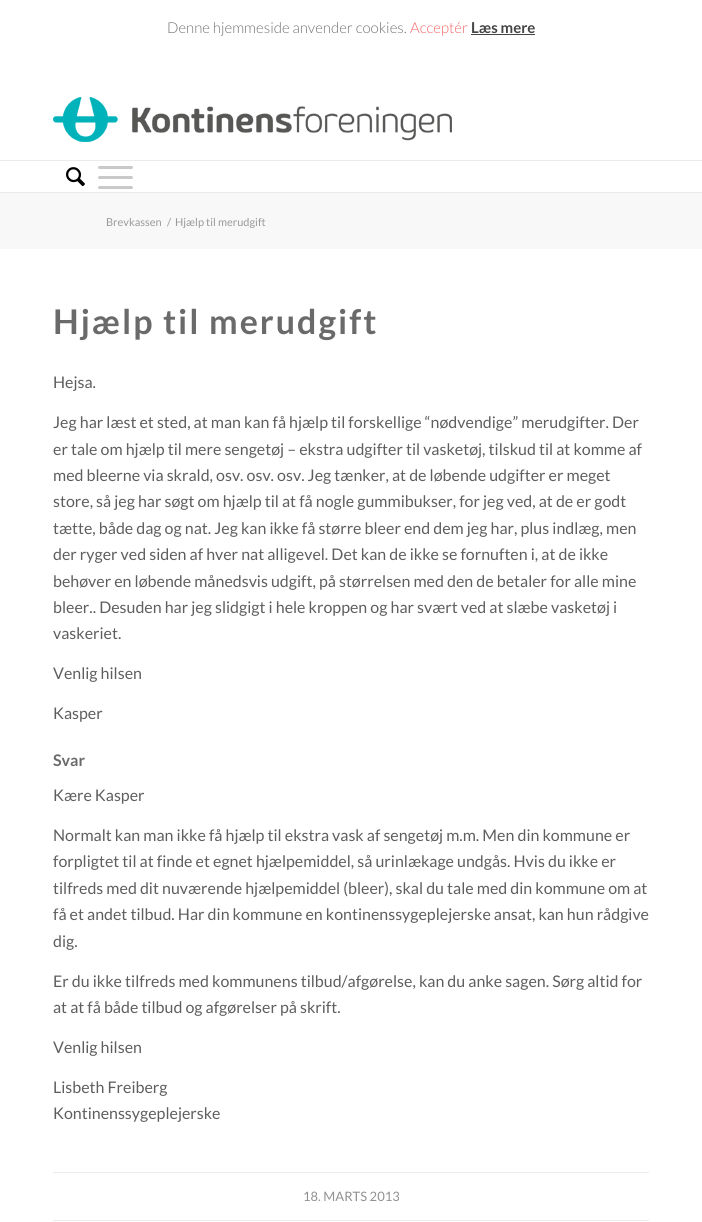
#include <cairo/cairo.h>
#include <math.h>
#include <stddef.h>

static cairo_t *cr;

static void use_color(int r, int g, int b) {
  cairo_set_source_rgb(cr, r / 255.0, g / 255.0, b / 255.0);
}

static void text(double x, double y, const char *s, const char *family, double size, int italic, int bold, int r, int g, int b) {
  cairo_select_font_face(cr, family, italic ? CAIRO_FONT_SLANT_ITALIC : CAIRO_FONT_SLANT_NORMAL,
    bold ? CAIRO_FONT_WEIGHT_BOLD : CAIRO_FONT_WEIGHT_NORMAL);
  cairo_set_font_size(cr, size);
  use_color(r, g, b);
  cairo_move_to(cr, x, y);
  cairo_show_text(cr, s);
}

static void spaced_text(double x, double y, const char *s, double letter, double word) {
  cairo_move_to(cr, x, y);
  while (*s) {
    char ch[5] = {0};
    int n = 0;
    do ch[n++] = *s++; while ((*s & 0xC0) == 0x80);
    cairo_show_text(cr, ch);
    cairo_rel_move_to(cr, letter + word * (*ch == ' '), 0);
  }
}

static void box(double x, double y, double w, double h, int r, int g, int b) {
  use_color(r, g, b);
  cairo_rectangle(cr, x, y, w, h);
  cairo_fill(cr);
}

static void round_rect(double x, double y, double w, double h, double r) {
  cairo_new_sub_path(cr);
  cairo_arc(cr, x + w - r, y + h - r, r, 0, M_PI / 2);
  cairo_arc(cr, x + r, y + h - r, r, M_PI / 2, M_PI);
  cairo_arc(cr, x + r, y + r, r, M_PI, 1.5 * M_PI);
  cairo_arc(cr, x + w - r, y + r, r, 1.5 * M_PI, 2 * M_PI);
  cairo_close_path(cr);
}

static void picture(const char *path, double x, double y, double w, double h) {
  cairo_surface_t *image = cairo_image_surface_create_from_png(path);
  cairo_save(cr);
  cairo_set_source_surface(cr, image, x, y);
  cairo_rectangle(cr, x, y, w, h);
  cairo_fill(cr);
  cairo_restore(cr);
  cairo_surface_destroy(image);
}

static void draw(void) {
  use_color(255, 255, 255);
  cairo_paint(cr);
  box(471, 34, 64, 1, 68, 68, 68);
  picture("img_01.png", 53, 97, 399, 45);
  box(0, 160, 702, 1, 239, 234, 234);
  box(0, 192, 702, 1, 239, 234, 234);
  picture("img_02.png", 66, 167, 19, 20);
  use_color(201, 201, 201);
  round_rect(98, 176, 35, 3, 1.5);
  cairo_fill(cr);
  round_rect(98, 166, 35, 3, 1.5);
  cairo_fill(cr);
  round_rect(98, 186, 35, 3, 1.5);
  cairo_fill(cr);
  box(0, 193, 702, 56, 248, 248, 248);
  box(53, 1172, 596, 1, 239, 234, 234);
  box(53, 1220, 596, 1, 239, 234, 234);
  text(167, 33, "Denne hjemmeside anvender cookies.", "Lato Light", 15, 0, 0, 114, 114, 114);
  text(410, 33, "Acceptér", "Lato Light", 15, 0, 0, 245, 101, 101);
  text(471, 33, "Læs mere", "Lato", 15, 0, 1, 68, 68, 68);
  text(106, 226, "Brevkassen", "Lato", 11, 0, 0, 153, 153, 153);
  text(167, 226, "/", "Lato", 11, 0, 0, 153, 153, 153);
  text(175, 226, "Hjælp til merudgift", "Lato", 11, 0, 0, 153, 153, 153);
  cairo_select_font_face(cr, "Lato", CAIRO_FONT_SLANT_NORMAL, CAIRO_FONT_WEIGHT_BOLD);
  cairo_set_font_size(cr, 34);
  use_color(107, 106, 107);
  spaced_text(53, 334, "Hjælp til merudgift", 2, 0);
  text(53, 388, "Hejsa.", "Lato", 16, 0, 0, 94, 94, 94);
  text(53, 428, "Jeg har læst et sted, at man kan få hjælp til forskellige “nødvendige” merudgifter. Der", "Lato", 16, 0, 0, 94, 94, 94);
  text(53, 455, "er tale om hjælp til mere sengetøj – ekstra udgifter til vasketøj, tilskud til at komme af", "Lato", 16, 0, 0, 94, 94, 94);
  text(53, 481, "med bleerne via skrald, osv. osv. osv. Jeg tænker, at de løbende udgifter er meget", "Lato", 16, 0, 0, 94, 94, 94);
  text(53, 507, "store, så jeg har søgt om hjælp til at få nogle gummibukser, for jeg ved, at de er godt", "Lato", 16, 0, 0, 94, 94, 94);
  text(53, 534, "tætte, både dag og nat. Jeg kan ikke få større bleer end dem jeg har, plus indlæg, men", "Lato", 16, 0, 0, 94, 94, 94);
  text(53, 560, "der ryger ved siden af hver nat alligevel. Det kan de ikke se fornuften i, at de ikke", "Lato", 16, 0, 0, 94, 94, 94);
  text(53, 587, "behøver en løbende månedsvis udgift, på størrelsen med den de betaler for alle mine", "Lato", 16, 0, 0, 94, 94, 94);
  text(53, 613, "bleer.. Desuden har jeg slidgigt i hele kroppen og har svært ved at slæbe vasketøj i", "Lato", 16, 0, 0, 94, 94, 94);
  text(53, 639, "vaskeriet.", "Lato", 16, 0, 0, 94, 94, 94);
  text(53, 679, "Venlig hilsen", "Lato", 16, 0, 0, 94, 94, 94);
  text(53, 719, "Kasper", "Lato", 16, 0, 0, 94, 94, 94);
  text(53, 766, "Svar", "Lato", 16, 0, 1, 107, 106, 107);
  text(53, 801, "Kære Kasper", "Lato", 16, 0, 0, 94, 94, 94);
  text(53, 841, "Normalt kan man ikke få hjælp til ekstra vask af sengetøj m.m. Men din kommune er", "Lato", 16, 0, 0, 94, 94, 94);
  text(53, 867, "forpligtet til at finde et egnet hjælpemiddel, så urinlækage undgås. Hvis du ikke er", "Lato", 16, 0, 0, 94, 94, 94);
  text(53, 894, "tilfreds med dit nuværende hjælpemiddel (bleer), skal du tale med din kommune om at", "Lato", 16, 0, 0, 94, 94, 94);
  text(53, 920, "få et andet tilbud. Har din kommune en kontinenssygeplejerske ansat, kan hun rådgive", "Lato", 16, 0, 0, 94, 94, 94);
  text(53, 947, "dig.", "Lato", 16, 0, 0, 94, 94, 94);
  text(53, 987, "Er du ikke tilfreds med kommunens tilbud/afgørelse, kan du anke sagen. Sørg altid for", "Lato", 16, 0, 0, 94, 94, 94);
  text(53, 1013, "at at få både tilbud og afgørelser på skrift.", "Lato", 16, 0, 0, 94, 94, 94);
  text(53, 1053, "Venlig hilsen", "Lato", 16, 0, 0, 94, 94, 94);
  text(53, 1093, "Lisbeth Freiberg", "Lato", 16, 0, 0, 94, 94, 94);
  text(53, 1119, "Kontinenssygeplejerske", "Lato", 16, 0, 0, 94, 94, 94);
  text(303, 1201, "18. MARTS 2013", "Lato", 13, 0, 0, 145, 145, 145);
}

int main(void) {
  cairo_surface_t *surface = cairo_image_surface_create(CAIRO_FORMAT_RGB24, 702, 1222);
  cr = cairo_create(surface);
  cairo_font_options_t *options = cairo_font_options_create();
  cairo_font_options_set_hint_metrics(options, CAIRO_HINT_METRICS_OFF);
  cairo_font_options_set_hint_style(options, CAIRO_HINT_STYLE_NONE);
  cairo_set_font_options(cr, options);
  cairo_set_miter_limit(cr, 4);
  draw();
  cairo_surface_write_to_png(surface, "out.png");
  cairo_font_options_destroy(options);
  cairo_destroy(cr);
  cairo_surface_destroy(surface);
  return 0;
}
